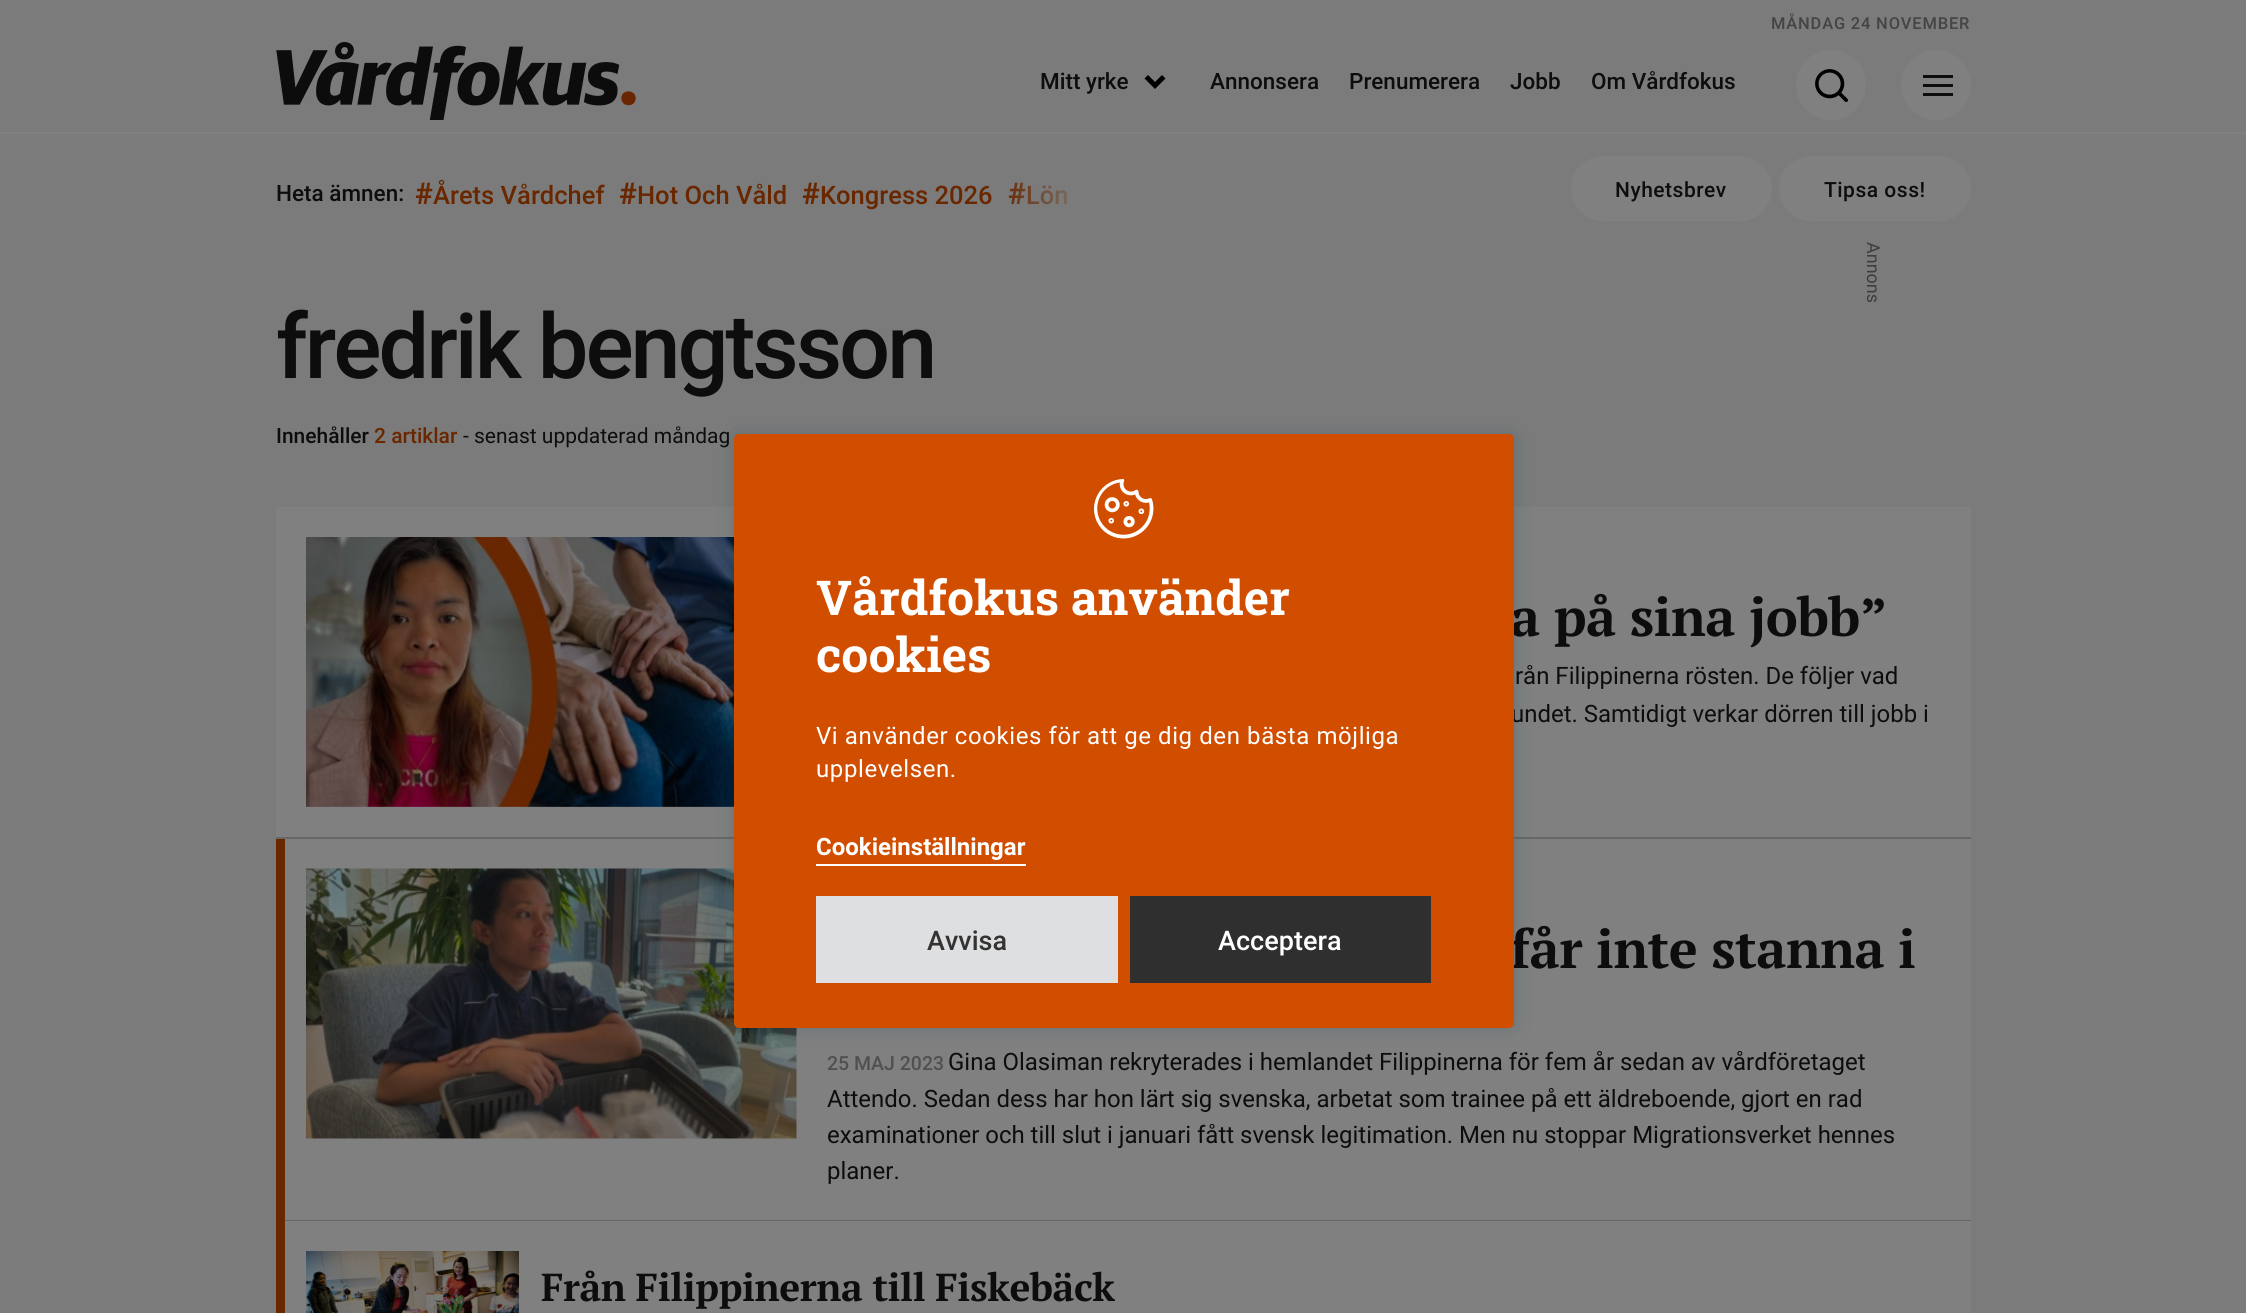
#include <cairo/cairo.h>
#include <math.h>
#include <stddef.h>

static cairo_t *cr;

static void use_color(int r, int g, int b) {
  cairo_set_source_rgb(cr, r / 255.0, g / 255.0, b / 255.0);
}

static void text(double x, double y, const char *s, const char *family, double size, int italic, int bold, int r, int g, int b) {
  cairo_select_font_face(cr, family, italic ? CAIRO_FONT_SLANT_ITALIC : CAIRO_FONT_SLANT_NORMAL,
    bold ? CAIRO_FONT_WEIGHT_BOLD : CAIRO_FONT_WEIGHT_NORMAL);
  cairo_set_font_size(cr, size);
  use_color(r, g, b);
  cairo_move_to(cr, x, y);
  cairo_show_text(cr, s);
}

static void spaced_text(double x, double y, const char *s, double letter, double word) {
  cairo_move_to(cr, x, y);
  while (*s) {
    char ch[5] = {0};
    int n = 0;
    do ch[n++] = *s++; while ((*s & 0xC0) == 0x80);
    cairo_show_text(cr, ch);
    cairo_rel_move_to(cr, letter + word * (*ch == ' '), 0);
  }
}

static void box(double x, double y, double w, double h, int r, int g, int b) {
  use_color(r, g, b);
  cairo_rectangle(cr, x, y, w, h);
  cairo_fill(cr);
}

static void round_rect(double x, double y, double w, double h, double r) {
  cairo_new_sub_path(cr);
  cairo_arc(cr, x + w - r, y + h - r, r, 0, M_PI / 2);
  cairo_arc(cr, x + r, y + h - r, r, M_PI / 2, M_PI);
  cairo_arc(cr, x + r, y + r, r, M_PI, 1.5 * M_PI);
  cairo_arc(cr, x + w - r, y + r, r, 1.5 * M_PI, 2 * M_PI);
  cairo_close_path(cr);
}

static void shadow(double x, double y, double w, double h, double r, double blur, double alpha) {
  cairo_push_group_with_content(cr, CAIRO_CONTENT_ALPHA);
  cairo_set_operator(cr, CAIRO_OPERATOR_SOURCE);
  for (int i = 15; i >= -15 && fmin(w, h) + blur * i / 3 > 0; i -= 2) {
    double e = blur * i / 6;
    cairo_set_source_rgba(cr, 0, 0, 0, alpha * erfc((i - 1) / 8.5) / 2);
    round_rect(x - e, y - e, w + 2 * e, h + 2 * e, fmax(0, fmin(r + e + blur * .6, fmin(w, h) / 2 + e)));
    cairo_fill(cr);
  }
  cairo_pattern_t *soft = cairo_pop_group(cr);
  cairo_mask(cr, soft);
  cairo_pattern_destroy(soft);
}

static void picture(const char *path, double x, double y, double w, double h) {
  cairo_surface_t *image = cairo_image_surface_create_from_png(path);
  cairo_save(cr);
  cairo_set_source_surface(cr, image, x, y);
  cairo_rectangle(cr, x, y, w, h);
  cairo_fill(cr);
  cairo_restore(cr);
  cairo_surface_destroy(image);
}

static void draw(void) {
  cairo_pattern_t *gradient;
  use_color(123, 123, 123);
  cairo_paint(cr);
  box(0, 132, 2246, 2, 128, 128, 128);
  picture("img_01.png", 276, 42, 360, 78);
  use_color(0, 0, 0);
  cairo_new_path(cr);
  cairo_move_to(cr, 1144.5, 78.5);
  cairo_line_to(cr, 1148, 75);
  cairo_line_to(cr, 1155, 82);
  cairo_line_to(cr, 1162, 75);
  cairo_line_to(cr, 1165.5, 78.5);
  cairo_line_to(cr, 1155, 89);
  cairo_close_path(cr);
  cairo_fill(cr);
  use_color(128, 128, 128);
  cairo_arc(cr, 1831, 85, 35, 0, 2 * M_PI);
  cairo_fill(cr);
  picture("img_02.png", 1815, 69, 33, 33);
  cairo_arc(cr, 1936, 85, 35, 0, 2 * M_PI);
  cairo_fill(cr);
  box(1923, 75, 30, 3, 13, 13, 13);
  box(1923, 84, 30, 3, 13, 13, 13);
  box(1923, 93, 30, 3, 13, 13, 13);
  use_color(128, 128, 128);
  round_rect(1571, 156, 201, 65, 32.5);
  cairo_fill(cr);
  round_rect(1779, 156, 192, 65, 32.5);
  cairo_fill(cr);
  box(276, 507, 1695, 330, 128, 128, 128);
  box(276, 837, 1695, 2, 103, 103, 103);
  picture("img_03.png", 306, 537, 428, 270);
  box(285, 839, 1686, 381, 128, 128, 128);
  box(276, 839, 9, 474, 105, 39, 0);
  box(285, 1220, 1686, 1, 103, 103, 103);
  picture("img_04.png", 306, 868, 491, 271);
  box(285, 1221, 1686, 92, 128, 128, 128);
  picture("img_05.png", 306, 1251, 213, 62);
  use_color(1, 57, 70);
  shadow(734, 434, 780, 594, 5, 9, 0.2);
  cairo_select_font_face(cr, "Roboto Medium", CAIRO_FONT_SLANT_NORMAL, CAIRO_FONT_WEIGHT_NORMAL);
  cairo_set_font_size(cr, 16.5);
  use_color(68, 68, 68);
  spaced_text(1771, 29, "MÅNDAG 24 NOVEMBER", 0.8, 0);
  text(1040, 89, "Mitt yrke", "Roboto Medium", 22.5, 0, 0, 13, 13, 13);
  text(1210, 89, "Annonsera", "Roboto Medium", 22.5, 0, 0, 13, 13, 13);
  text(1349, 89, "Prenumerera", "Roboto Medium", 22.5, 0, 0, 13, 13, 13);
  text(1510, 89, "Jobb", "Roboto Medium", 22.5, 0, 0, 13, 13, 13);
  text(1591, 89, "Om Vårdfokus", "Roboto Medium", 22.5, 0, 0, 13, 13, 13);
  text(276, 201, "Heta ämnen:", "Roboto Medium", 22.5, 0, 0, 13, 13, 13);
  text(415, 204, "#", "Roboto", 30, 0, 1, 105, 39, 0);
  text(433, 204, "Årets Vårdchef", "Roboto Medium", 25.5, 0, 0, 105, 39, 0);
  text(619, 204, "#", "Roboto", 30, 0, 1, 105, 39, 0);
  text(637, 204, "Hot Och Våld", "Roboto Medium", 25.5, 0, 0, 105, 39, 0);
  text(802, 204, "#", "Roboto", 30, 0, 1, 105, 39, 0);
  text(820, 204, "Kongress 2026", "Roboto Medium", 25.5, 0, 0, 105, 39, 0);
  text(1008, 204, "#", "Roboto", 30, 0, 1, 105, 39, 0);
  text(1026, 204, "Lön", "Roboto Medium", 25.5, 0, 0, 105, 39, 0);
  gradient = cairo_pattern_create_linear(999, 197, 1089, 197);
  cairo_pattern_add_color_stop_rgba(gradient, 0, 0.482, 0.482, 0.482, 0);
  cairo_pattern_add_color_stop_rgba(gradient, 1, 0.482, 0.482, 0.482, 1);
  cairo_set_source(cr, gradient);
  cairo_pattern_destroy(gradient);
  cairo_rectangle(cr, 1008, 182, 59, 23);
  cairo_fill(cr);
  cairo_set_font_size(cr, 21);
  use_color(13, 13, 13);
  spaced_text(1615, 197, "Nyhetsbrev", 0.5, 0);
  spaced_text(1824, 197, "Tipsa oss!", 0.5, 0);
  cairo_save(cr);
  cairo_translate(cr, 1867, 242);
  cairo_rotate(cr, 90 * M_PI / 180);
  text(0, 0, "Annons", "Roboto", 18, 0, 0, 61, 61, 61);
  cairo_restore(cr);
  cairo_select_font_face(cr, "Roboto Medium", CAIRO_FONT_SLANT_NORMAL, CAIRO_FONT_WEIGHT_NORMAL);
  cairo_set_font_size(cr, 90);
  use_color(13, 13, 13);
  spaced_text(276, 378, "fredrik bengtsson", -3.1, 0);
  text(276, 443, "Innehåller", "Roboto Medium", 21, 0, 0, 13, 13, 13);
  text(374, 443, "2 artiklar", "Roboto Medium", 21, 0, 0, 105, 39, 0);
  text(463, 443, "- senast uppdaterad måndag", "Roboto", 21, 0, 0, 13, 13, 13);
  cairo_select_font_face(cr, "PT Serif", CAIRO_FONT_SLANT_NORMAL, CAIRO_FONT_WEIGHT_BOLD);
  cairo_set_font_size(cr, 54);
  spaced_text(1510, 636, "a på sina jobb”", -0.5, 0);
  text(1515, 684, "rån Filippinerna rösten. De följer vad", "Roboto", 24, 0, 0, 13, 13, 13);
  text(1511, 722, "undet. Samtidigt verkar dörren till jobb i", "Roboto", 24, 0, 0, 13, 13, 13);
  cairo_select_font_face(cr, "PT Serif", CAIRO_FONT_SLANT_NORMAL, CAIRO_FONT_WEIGHT_BOLD);
  cairo_set_font_size(cr, 54);
  spaced_text(1510, 968, "får inte stanna i", -0.5, 0);
  text(827, 1070, "25 MAJ 2023", "Roboto Medium", 19.5, 0, 0, 80, 80, 80);
  text(948, 1070, "Gina Olasiman rekryterades i hemlandet Filippinerna för fem år sedan av vårdföretaget", "Roboto", 24, 0, 0, 13, 13, 13);
  text(827, 1107, "Attendo. Sedan dess har hon lärt sig svenska, arbetat som trainee på ett äldreboende, gjort en rad", "Roboto", 24, 0, 0, 13, 13, 13);
  text(827, 1143, "examinationer och till slut i januari fått svensk legitimation. Men nu stoppar Migrationsverket hennes", "Roboto", 24, 0, 0, 13, 13, 13);
  text(827, 1179, "planer.", "Roboto", 24, 0, 0, 13, 13, 13);
  cairo_select_font_face(cr, "PT Serif", CAIRO_FONT_SLANT_NORMAL, CAIRO_FONT_WEIGHT_BOLD);
  cairo_set_font_size(cr, 39);
  spaced_text(541, 1301, "Från Filippinerna till Fiskebäck", -0.4, 0);
  use_color(209, 78, 0);
  round_rect(734, 434, 780, 594, 5);
  cairo_fill(cr);
  picture("img_06.png", 1094, 479, 60, 60);
  text(816, 615, "Vårdfokus använder", "Roboto Slab", 48, 0, 1, 255, 255, 255);
  text(816, 672, "cookies", "Roboto Slab", 48, 0, 1, 255, 255, 255);
  cairo_select_font_face(cr, "Roboto", CAIRO_FONT_SLANT_NORMAL, CAIRO_FONT_WEIGHT_NORMAL);
  cairo_set_font_size(cr, 24);
  spaced_text(816, 744, "Vi använder cookies för att ge dig den bästa möjliga", 0.6, 0);
  spaced_text(816, 777, "upplevelsen.", 0.6, 0);
  box(816, 864, 210, 2, 255, 255, 255);
  text(816, 855, "Cookieinställningar", "Roboto", 24, 0, 1, 255, 255, 255);
  box(816, 896, 302, 87, 222, 223, 224);
  text(927, 950, "Avvisa", "Roboto Medium", 27, 0, 0, 51, 51, 51);
  box(1130, 896, 301, 87, 47, 47, 47);
  text(1218, 950, "Acceptera", "Roboto Medium", 27, 0, 0, 255, 255, 255);
}

int main(void) {
  cairo_surface_t *surface = cairo_image_surface_create(CAIRO_FORMAT_RGB24, 2246, 1313);
  cr = cairo_create(surface);
  cairo_font_options_t *options = cairo_font_options_create();
  cairo_font_options_set_hint_metrics(options, CAIRO_HINT_METRICS_OFF);
  cairo_font_options_set_hint_style(options, CAIRO_HINT_STYLE_NONE);
  cairo_set_font_options(cr, options);
  cairo_set_miter_limit(cr, 4);
  draw();
  cairo_surface_write_to_png(surface, "out.png");
  cairo_font_options_destroy(options);
  cairo_destroy(cr);
  cairo_surface_destroy(surface);
  return 0;
}
